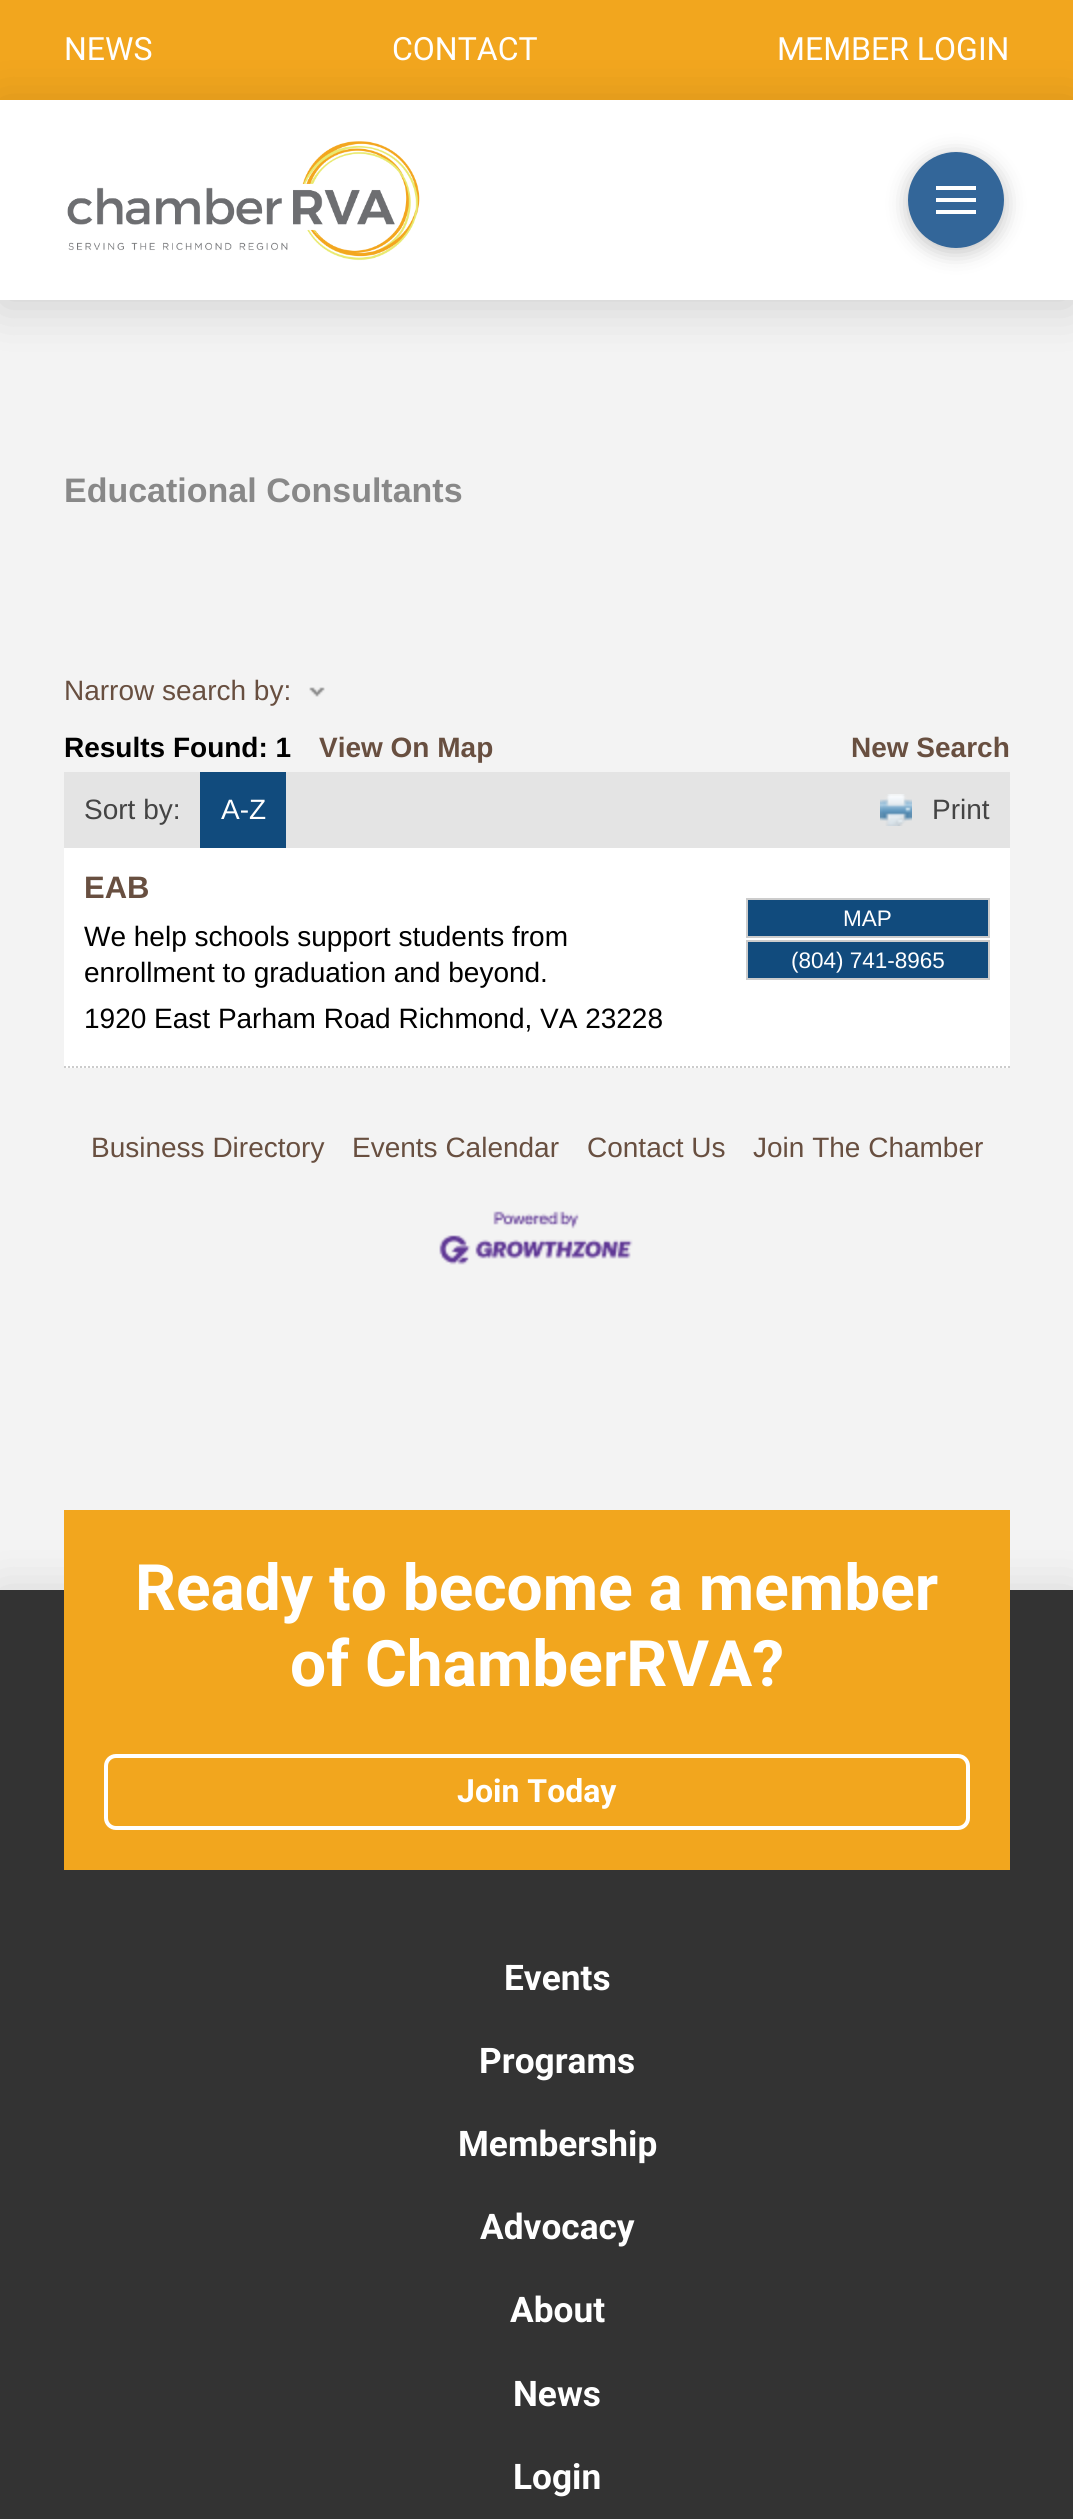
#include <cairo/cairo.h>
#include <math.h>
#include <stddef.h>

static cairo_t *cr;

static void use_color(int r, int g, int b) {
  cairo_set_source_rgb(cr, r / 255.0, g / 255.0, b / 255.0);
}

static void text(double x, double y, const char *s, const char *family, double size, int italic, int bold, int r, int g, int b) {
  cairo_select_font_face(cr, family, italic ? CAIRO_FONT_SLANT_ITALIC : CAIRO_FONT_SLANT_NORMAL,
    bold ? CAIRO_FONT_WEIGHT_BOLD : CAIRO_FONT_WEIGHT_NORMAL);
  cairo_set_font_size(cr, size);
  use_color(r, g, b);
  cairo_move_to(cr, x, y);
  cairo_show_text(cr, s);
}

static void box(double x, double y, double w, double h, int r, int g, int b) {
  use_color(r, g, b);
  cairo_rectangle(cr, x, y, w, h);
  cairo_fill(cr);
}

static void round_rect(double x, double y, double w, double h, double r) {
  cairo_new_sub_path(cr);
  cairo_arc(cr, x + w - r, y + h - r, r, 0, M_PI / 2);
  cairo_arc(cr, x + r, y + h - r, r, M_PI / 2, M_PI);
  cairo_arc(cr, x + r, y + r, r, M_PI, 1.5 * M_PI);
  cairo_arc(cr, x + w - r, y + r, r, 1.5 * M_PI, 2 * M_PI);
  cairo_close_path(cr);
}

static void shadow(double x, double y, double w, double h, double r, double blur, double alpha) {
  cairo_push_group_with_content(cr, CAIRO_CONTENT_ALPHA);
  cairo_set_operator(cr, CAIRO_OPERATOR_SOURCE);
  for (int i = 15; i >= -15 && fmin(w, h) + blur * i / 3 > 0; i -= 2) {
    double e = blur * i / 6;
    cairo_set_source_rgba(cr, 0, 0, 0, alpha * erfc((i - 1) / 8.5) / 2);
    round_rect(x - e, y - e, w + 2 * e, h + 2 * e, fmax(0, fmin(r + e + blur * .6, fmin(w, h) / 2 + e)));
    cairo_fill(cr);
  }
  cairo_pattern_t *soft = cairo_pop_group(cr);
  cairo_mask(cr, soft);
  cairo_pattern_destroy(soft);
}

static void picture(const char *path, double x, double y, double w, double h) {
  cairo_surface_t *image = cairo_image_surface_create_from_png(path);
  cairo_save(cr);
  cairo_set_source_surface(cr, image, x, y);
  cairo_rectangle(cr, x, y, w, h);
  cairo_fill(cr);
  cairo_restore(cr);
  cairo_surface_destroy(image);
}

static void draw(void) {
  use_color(243, 243, 243);
  cairo_paint(cr);
  box(0, 0, 1073, 100, 242, 166, 30);
  use_color(0, 0, 0);
  shadow(0, 106, 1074, 200, 0, 25, 0.15);
  box(0, 100, 1073, 200, 255, 255, 255);
  picture("img_01.png", 67, 141, 353, 120);
  use_color(0, 0, 0);
  shadow(908, 156, 96, 96, 48, 10.5, 0.25);
  use_color(51, 102, 153);
  cairo_arc(cr, 956, 200, 48, 0, 2 * M_PI);
  cairo_fill(cr);
  box(936, 186, 40, 4, 255, 255, 255);
  box(936, 198, 40, 4, 255, 255, 255);
  box(936, 210, 40, 4, 255, 255, 255);
  picture("img_02.png", 309, 687, 16, 10);
  box(64, 772, 946, 76, 228, 228, 228);
  box(200, 772, 86, 76, 17, 75, 125);
  picture("img_03.png", 880, 794, 32, 32);
  box(64, 848, 946, 220, 255, 255, 255);
  cairo_new_path(cr);
  cairo_move_to(cr, 64, 1067);
  cairo_line_to(cr, 1010, 1067);
  use_color(204, 204, 204);
  cairo_set_dash(cr, (double[]){2, 2}, 2, 0);
  cairo_stroke(cr);
  use_color(17, 75, 125);
  cairo_rectangle(cr, 747, 899, 242, 38);
  cairo_fill_preserve(cr);
  use_color(204, 204, 204);
  cairo_set_dash(cr, NULL, 0, 0);
  cairo_stroke(cr);
  use_color(17, 75, 125);
  cairo_rectangle(cr, 747, 941, 242, 38);
  cairo_fill_preserve(cr);
  use_color(204, 204, 204);
  cairo_stroke(cr);
  picture("img_04.png", 439, 1211, 194, 54);
  use_color(0, 0, 0);
  shadow(0, 1596, 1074, 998, 0, 25, 0.15);
  box(0, 1590, 1073, 929, 51, 51, 51);
  box(64, 1510, 946, 360, 242, 166, 30);
  round_rect(106, 1756, 862, 72, 10);
  use_color(255, 255, 255);
  cairo_set_line_width(cr, 4);
  cairo_stroke(cr);
  text(64, 60, "NEWS", "Roboto", 32, 0, 0, 255, 255, 255);
  text(392, 60, "CONTACT", "Roboto", 32, 0, 0, 255, 255, 255);
  text(777, 60, "MEMBER LOGIN", "Roboto", 32, 0, 0, 255, 255, 255);
  text(64, 502, "Educational Consultants", "Liberation Sans", 34, 0, 1, 136, 136, 136);
  text(64, 700, "Narrow search by:", "Liberation Sans", 28, 0, 0, 104, 79, 64);
  text(64, 757, "Results Found: 1", "Liberation Sans", 28, 0, 1, 0, 0, 0);
  text(319, 757, "View On Map", "Liberation Sans", 28, 0, 1, 104, 79, 64);
  text(851, 757, "New Search", "Liberation Sans", 28, 0, 1, 104, 79, 64);
  text(84, 819, "Sort by:", "Liberation Sans", 28, 0, 0, 68, 68, 68);
  text(221, 819, "A-Z", "Liberation Sans", 28, 0, 0, 255, 255, 255);
  text(932, 819, "Print", "Liberation Sans", 28, 0, 0, 68, 68, 68);
  text(84, 898, "EAB", "Liberation Sans", 31, 0, 1, 104, 79, 64);
  text(84, 946, "We help schools support students from", "Liberation Sans", 28, 0, 0, 0, 0, 0);
  text(84, 982, "enrollment to graduation and beyond.", "Liberation Sans", 28, 0, 0, 0, 0, 0);
  text(84, 1028, "1920 East Parham Road Richmond, VA 23228", "Liberation Sans", 28, 0, 0, 0, 0, 0);
  text(843, 926, "MAP", "Liberation Sans", 22.5, 0, 0, 255, 255, 255);
  text(791, 968, "(804) 741-8965", "Liberation Sans", 22.5, 0, 0, 255, 255, 255);
  text(91, 1157, "Business Directory", "Liberation Sans", 28, 0, 0, 104, 79, 64);
  text(352, 1157, "Events Calendar", "Liberation Sans", 28, 0, 0, 104, 79, 64);
  text(587, 1157, "Contact Us", "Liberation Sans", 28, 0, 0, 104, 79, 64);
  text(753, 1157, "Join The Chamber", "Liberation Sans", 28, 0, 0, 104, 79, 64);
  text(135, 1610, "Ready to become a member", "Roboto", 64, 0, 1, 255, 255, 255);
  text(290, 1686, "of ChamberRVA?", "Roboto", 64, 0, 1, 255, 255, 255);
  text(457, 1802, "Join Today", "Roboto", 32, 0, 1, 255, 255, 255);
  text(504, 1990, "Events", "Roboto", 35.25, 0, 1, 255, 255, 255);
  text(479, 2073, "Programs", "Roboto", 35.25, 0, 1, 255, 255, 255);
  text(458, 2156, "Membership", "Roboto", 35.25, 0, 1, 255, 255, 255);
  text(480, 2239, "Advocacy", "Roboto", 35.25, 0, 1, 255, 255, 255);
  text(510, 2322, "About", "Roboto", 35.25, 0, 1, 255, 255, 255);
  text(513, 2406, "News", "Roboto", 35.25, 0, 1, 255, 255, 255);
  text(513, 2489, "Login", "Roboto", 35.25, 0, 1, 255, 255, 255);
}

int main(void) {
  cairo_surface_t *surface = cairo_image_surface_create(CAIRO_FORMAT_RGB24, 1073, 2519);
  cr = cairo_create(surface);
  cairo_font_options_t *options = cairo_font_options_create();
  cairo_font_options_set_hint_metrics(options, CAIRO_HINT_METRICS_OFF);
  cairo_font_options_set_hint_style(options, CAIRO_HINT_STYLE_NONE);
  cairo_set_font_options(cr, options);
  cairo_set_miter_limit(cr, 4);
  draw();
  cairo_surface_write_to_png(surface, "out.png");
  cairo_font_options_destroy(options);
  cairo_destroy(cr);
  cairo_surface_destroy(surface);
  return 0;
}
